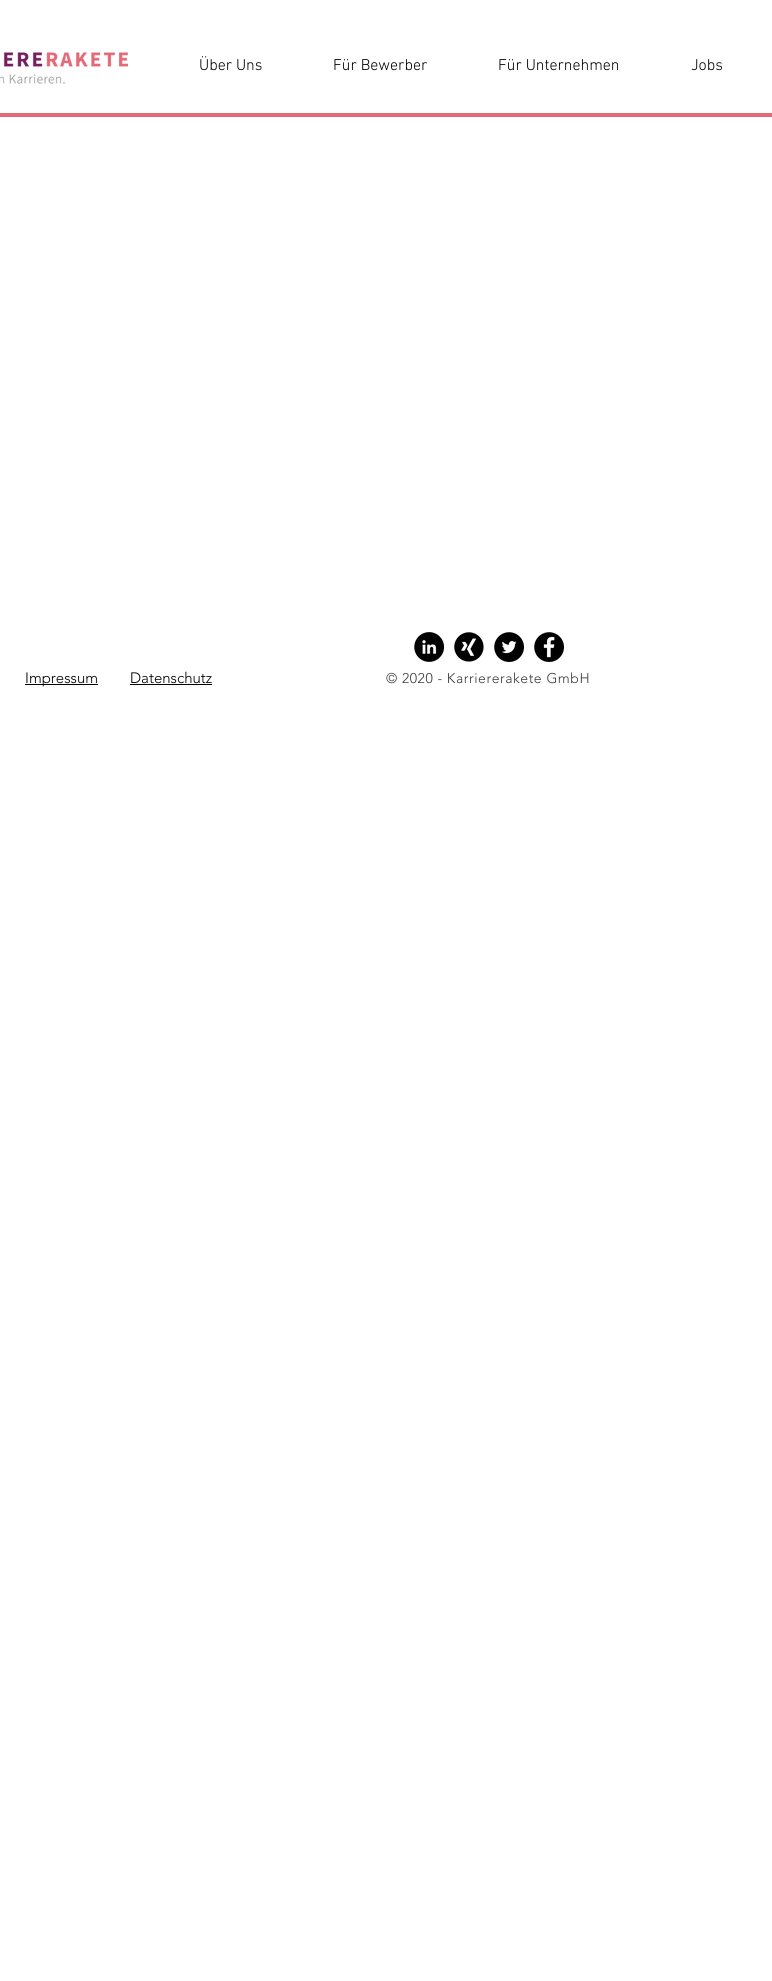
#include <cairo/cairo.h>
#include <math.h>
#include <stddef.h>

static cairo_t *cr;

static void use_color(int r, int g, int b) {
  cairo_set_source_rgb(cr, r / 255.0, g / 255.0, b / 255.0);
}

static void text(double x, double y, const char *s, const char *family, double size, int italic, int bold, int r, int g, int b) {
  cairo_select_font_face(cr, family, italic ? CAIRO_FONT_SLANT_ITALIC : CAIRO_FONT_SLANT_NORMAL,
    bold ? CAIRO_FONT_WEIGHT_BOLD : CAIRO_FONT_WEIGHT_NORMAL);
  cairo_set_font_size(cr, size);
  use_color(r, g, b);
  cairo_move_to(cr, x, y);
  cairo_show_text(cr, s);
}

static void spaced_text(double x, double y, const char *s, double letter, double word) {
  cairo_move_to(cr, x, y);
  while (*s) {
    char ch[5] = {0};
    int n = 0;
    do ch[n++] = *s++; while ((*s & 0xC0) == 0x80);
    cairo_show_text(cr, ch);
    cairo_rel_move_to(cr, letter + word * (*ch == ' '), 0);
  }
}

static void box(double x, double y, double w, double h, int r, int g, int b) {
  use_color(r, g, b);
  cairo_rectangle(cr, x, y, w, h);
  cairo_fill(cr);
}

static void picture(const char *path, double x, double y, double w, double h) {
  cairo_surface_t *image = cairo_image_surface_create_from_png(path);
  cairo_save(cr);
  cairo_set_source_surface(cr, image, x, y);
  cairo_rectangle(cr, x, y, w, h);
  cairo_fill(cr);
  cairo_restore(cr);
  cairo_surface_destroy(image);
}

static void draw(void) {
  use_color(255, 255, 255);
  cairo_paint(cr);
  picture("img_01.png", 0, 52, 128, 32);
  box(0, 113, 772, 4, 229, 106, 119);
  picture("img_02.png", 414, 632, 30, 30);
  picture("img_03.png", 454, 632, 30, 30);
  picture("img_04.png", 494, 632, 30, 30);
  picture("img_05.png", 534, 632, 30, 30);
  box(25, 684, 73, 1, 0, 0, 0);
  box(130, 684, 82, 1, 0, 0, 0);
  text(199, 70, "Über Uns", "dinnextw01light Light", 16, 0, 0, 0, 0, 0);
  text(333, 70, "Für Bewerber", "dinnextw01light Light", 16, 0, 0, 0, 0, 0);
  text(498, 70, "Für Unternehmen", "dinnextw01light Light", 16, 0, 0, 0, 0, 0);
  text(691, 70, "Jobs", "dinnextw01light Light", 16, 0, 0, 0, 0, 0);
  text(25, 683, "Impressum", "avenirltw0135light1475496 Light", 15, 0, 0, 0, 0, 0);
  text(130, 683, "Datenschutz", "avenirltw0135light1475496 Light", 15, 0, 0, 0, 0, 0);
  cairo_set_font_size(cr, 14);
  use_color(59, 58, 58);
  spaced_text(386, 683, "© 2020 - Karriererakete GmbH", 0.55, 0);
}

int main(void) {
  cairo_surface_t *surface = cairo_image_surface_create(CAIRO_FORMAT_RGB24, 772, 1981);
  cr = cairo_create(surface);
  cairo_font_options_t *options = cairo_font_options_create();
  cairo_font_options_set_hint_metrics(options, CAIRO_HINT_METRICS_OFF);
  cairo_font_options_set_hint_style(options, CAIRO_HINT_STYLE_NONE);
  cairo_set_font_options(cr, options);
  cairo_set_miter_limit(cr, 4);
  draw();
  cairo_surface_write_to_png(surface, "out.png");
  cairo_font_options_destroy(options);
  cairo_destroy(cr);
  cairo_surface_destroy(surface);
  return 0;
}
